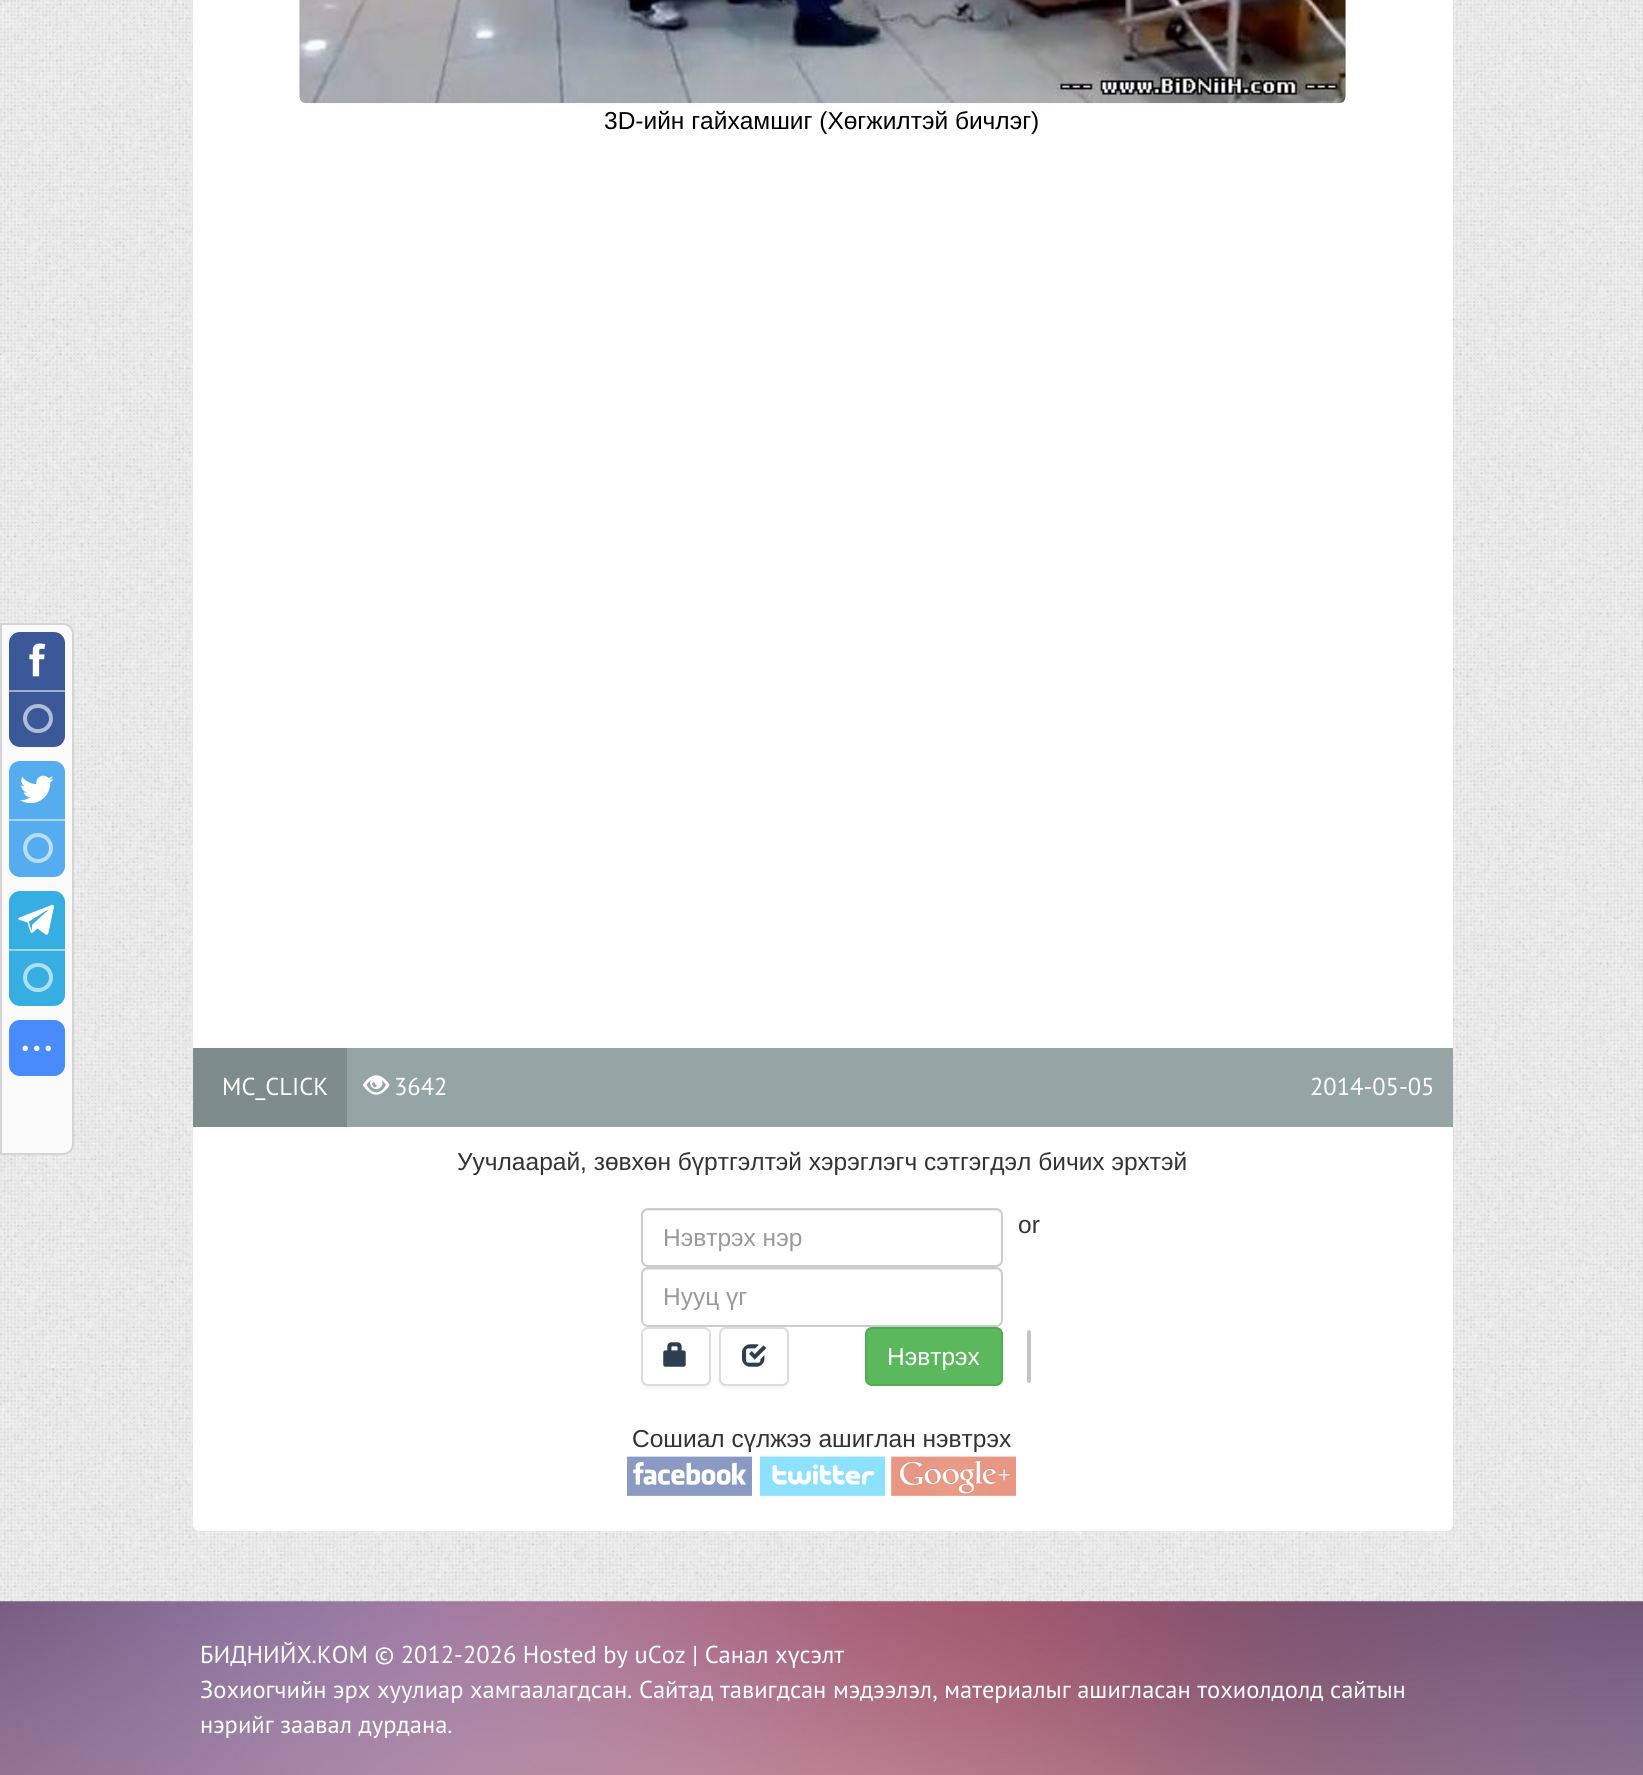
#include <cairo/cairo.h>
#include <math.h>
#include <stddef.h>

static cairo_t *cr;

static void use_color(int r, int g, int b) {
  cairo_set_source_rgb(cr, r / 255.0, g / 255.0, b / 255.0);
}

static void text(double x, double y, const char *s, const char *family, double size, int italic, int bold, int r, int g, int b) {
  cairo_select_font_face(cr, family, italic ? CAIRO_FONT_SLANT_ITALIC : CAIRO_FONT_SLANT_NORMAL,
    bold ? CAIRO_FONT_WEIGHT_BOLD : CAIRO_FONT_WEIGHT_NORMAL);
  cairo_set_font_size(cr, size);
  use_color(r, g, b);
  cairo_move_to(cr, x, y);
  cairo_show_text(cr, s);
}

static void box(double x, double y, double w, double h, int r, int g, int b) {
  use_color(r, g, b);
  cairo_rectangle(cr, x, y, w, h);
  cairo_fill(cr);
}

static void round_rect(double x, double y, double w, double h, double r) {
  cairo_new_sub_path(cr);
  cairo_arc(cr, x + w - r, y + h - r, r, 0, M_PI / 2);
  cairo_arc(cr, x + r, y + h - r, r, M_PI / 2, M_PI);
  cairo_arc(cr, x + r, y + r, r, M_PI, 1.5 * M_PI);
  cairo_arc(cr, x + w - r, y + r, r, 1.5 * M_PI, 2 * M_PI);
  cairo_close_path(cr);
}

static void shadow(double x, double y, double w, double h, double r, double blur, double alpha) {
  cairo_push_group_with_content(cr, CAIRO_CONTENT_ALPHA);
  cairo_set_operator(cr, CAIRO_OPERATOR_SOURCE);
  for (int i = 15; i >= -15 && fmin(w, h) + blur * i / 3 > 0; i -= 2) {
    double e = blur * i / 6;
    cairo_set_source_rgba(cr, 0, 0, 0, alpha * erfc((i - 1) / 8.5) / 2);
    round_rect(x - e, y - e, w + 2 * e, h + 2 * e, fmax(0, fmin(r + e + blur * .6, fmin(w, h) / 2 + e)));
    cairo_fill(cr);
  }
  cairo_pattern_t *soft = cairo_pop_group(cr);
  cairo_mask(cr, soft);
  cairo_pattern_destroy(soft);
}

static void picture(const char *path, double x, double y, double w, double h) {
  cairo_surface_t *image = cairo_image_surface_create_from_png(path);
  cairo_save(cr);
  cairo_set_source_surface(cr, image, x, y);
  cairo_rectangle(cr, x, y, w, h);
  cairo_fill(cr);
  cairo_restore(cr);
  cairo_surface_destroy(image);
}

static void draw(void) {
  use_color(255, 255, 255);
  cairo_paint(cr);
  picture("img_01.png", 0, 0, 1643, 1602);
  use_color(250, 250, 250);
  cairo_new_path(cr);
  cairo_move_to(cr, 1, 624);
  cairo_line_to(cr, 63, 624);
  cairo_curve_to(cr, 68.5, 624, 73, 628.5, 73, 634);
  cairo_line_to(cr, 73, 1144);
  cairo_curve_to(cr, 73, 1149.5, 68.5, 1154, 63, 1154);
  cairo_line_to(cr, 1, 1154);
  cairo_close_path(cr);
  cairo_fill_preserve(cr);
  use_color(212, 212, 212);
  cairo_stroke(cr);
  use_color(59, 89, 152);
  round_rect(9, 632, 56, 115, 11);
  cairo_fill(cr);
  picture("img_02.png", 29, 643, 17, 34);
  box(9, 690, 56, 2, 157, 172, 204);
  round_rect(25, 706, 26, 25, 12.5);
  use_color(177, 189, 214);
  cairo_set_line_width(cr, 4);
  cairo_stroke(cr);
  use_color(85, 172, 238);
  round_rect(9, 761, 56, 116, 11);
  cairo_fill(cr);
  picture("img_03.png", 20, 775, 34, 29);
  box(9, 819, 56, 2, 170, 214, 247);
  cairo_arc(cr, 38, 848, 13, 0, 2 * M_PI);
  use_color(187, 222, 248);
  cairo_stroke(cr);
  use_color(55, 174, 226);
  round_rect(9, 891, 56, 115, 11);
  cairo_fill(cr);
  picture("img_04.png", 18, 904, 36, 31);
  box(9, 949, 56, 2, 155, 215, 241);
  round_rect(25, 965, 26, 25, 12.5);
  use_color(175, 223, 243);
  cairo_stroke(cr);
  use_color(73, 139, 250);
  round_rect(9, 1020, 56, 56, 11);
  cairo_fill(cr);
  picture("img_05.png", 22, 1045, 29, 7);
  box(193, 0, 1260, 1048, 255, 255, 255);
  picture("img_06.png", 299, 0, 1047, 104);
  box(347, 1048, 1106, 79, 149, 165, 166);
  box(193, 1048, 154, 79, 127, 140, 141);
  picture("img_07.png", 362, 1075, 28, 20);
  use_color(255, 255, 255);
  cairo_new_path(cr);
  cairo_move_to(cr, 193, 1127);
  cairo_line_to(cr, 1453, 1127);
  cairo_line_to(cr, 1453, 1524);
  cairo_curve_to(cr, 1453, 1528, 1450, 1531, 1446, 1531);
  cairo_line_to(cr, 200, 1531);
  cairo_curve_to(cr, 196, 1531, 193, 1528, 193, 1524);
  cairo_close_path(cr);
  cairo_fill(cr);
  use_color(236, 236, 236);
  cairo_new_path(cr);
  cairo_move_to(cr, 648, 1211);
  cairo_line_to(cr, 996, 1211);
  cairo_curve_to(cr, 999, 1211, 1001, 1213, 1001, 1216);
  cairo_curve_to(cr, 1001, 1213, 1000, 1209, 996, 1209);
  cairo_line_to(cr, 647, 1209);
  cairo_curve_to(cr, 643, 1209, 642, 1213, 642, 1216);
  cairo_curve_to(cr, 642, 1213, 645, 1211, 648, 1211);
  cairo_close_path(cr);
  cairo_fill(cr);
  round_rect(642, 1209, 360, 57, 6);
  use_color(204, 204, 204);
  cairo_set_line_width(cr, 2);
  cairo_stroke(cr);
  use_color(236, 236, 236);
  cairo_new_path(cr);
  cairo_move_to(cr, 648, 1270);
  cairo_line_to(cr, 996, 1270);
  cairo_curve_to(cr, 999, 1270, 1001, 1273, 1001, 1276);
  cairo_curve_to(cr, 1001, 1273, 1000, 1269, 996, 1269);
  cairo_line_to(cr, 647, 1269);
  cairo_curve_to(cr, 643, 1269, 642, 1273, 642, 1276);
  cairo_curve_to(cr, 642, 1273, 645, 1270, 648, 1270);
  cairo_close_path(cr);
  cairo_fill(cr);
  round_rect(642, 1268, 360, 58, 6);
  use_color(204, 204, 204);
  cairo_stroke(cr);
  use_color(0, 0, 0);
  shadow(641, 1328, 70, 60, 7, 1, 0.05);
  use_color(255, 255, 255);
  round_rect(642, 1328, 68, 57, 6);
  cairo_fill_preserve(cr);
  use_color(221, 221, 221);
  cairo_stroke(cr);
  picture("img_08.png", 663, 1342, 23, 25);
  use_color(0, 0, 0);
  shadow(719, 1328, 70, 60, 7, 1, 0.05);
  use_color(255, 255, 255);
  round_rect(720, 1328, 68, 57, 6);
  cairo_fill_preserve(cr);
  use_color(221, 221, 221);
  cairo_stroke(cr);
  picture("img_09.png", 742, 1344, 25, 23);
  use_color(92, 184, 92);
  round_rect(866, 1328, 136, 57, 6);
  cairo_fill_preserve(cr);
  use_color(76, 174, 76);
  cairo_stroke(cr);
  use_color(196, 196, 196);
  round_rect(1027, 1330, 4, 53, 2);
  cairo_fill(cr);
  picture("img_10.png", 627, 1456, 125, 40);
  picture("img_11.png", 760, 1456, 125, 40);
  picture("img_12.png", 891, 1456, 125, 40);
  picture("img_13.png", 0, 1601, 1643, 174);
  text(604, 129, "3D-ийн гайхамшиг (Хөгжилтэй бичлэг)", "Liberation Sans", 24.5, 0, 0, 0, 0, 0);
  text(222, 1095, "MC_CLICK", "PT Sans", 24.5, 0, 0, 255, 255, 255);
  text(394, 1095, "3642", "PT Sans", 24.5, 0, 0, 255, 255, 255);
  text(1310, 1095, "2014-05-05", "PT Sans", 24.5, 0, 0, 255, 255, 255);
  text(457, 1170, "Уучлаарай, зөвхөн бүртгэлтэй хэрэглэгч сэтгэгдэл бичих эрхтэй", "Liberation Sans", 24.5, 0, 0, 51, 51, 51);
  text(1018, 1233, "or", "Liberation Sans", 24.5, 0, 0, 51, 51, 51);
  text(663, 1246, "Нэвтрэх нэр", "Liberation Sans", 24.5, 0, 0, 153, 153, 153);
  text(663, 1305, "Нууц үг", "Liberation Sans", 24.5, 0, 0, 153, 153, 153);
  text(887, 1365, "Нэвтрэх", "Liberation Sans", 24.5, 0, 0, 255, 255, 255);
  text(632, 1447, "Сошиал сүлжээ ашиглан нэвтрэх", "Liberation Sans", 24.5, 0, 0, 51, 51, 51);
  text(200, 1663, "БИДНИЙХ.КОМ © 2012-2026 Hosted by uCoz | Санал хүсэлт", "PT Sans", 24.5, 0, 0, 255, 255, 255);
  text(200, 1698, "Зохиогчийн эрх хуулиар хамгаалагдсан. Сайтад тавигдсан мэдээлэл, материалыг ашигласан тохиолдолд сайтын", "PT Sans", 24.5, 0, 0, 255, 255, 255);
  text(200, 1733, "нэрийг заавал дурдана.", "PT Sans", 24.5, 0, 0, 255, 255, 255);
}

int main(void) {
  cairo_surface_t *surface = cairo_image_surface_create(CAIRO_FORMAT_RGB24, 1643, 1775);
  cr = cairo_create(surface);
  cairo_font_options_t *options = cairo_font_options_create();
  cairo_font_options_set_hint_metrics(options, CAIRO_HINT_METRICS_OFF);
  cairo_font_options_set_hint_style(options, CAIRO_HINT_STYLE_NONE);
  cairo_set_font_options(cr, options);
  cairo_set_miter_limit(cr, 4);
  draw();
  cairo_surface_write_to_png(surface, "out.png");
  cairo_font_options_destroy(options);
  cairo_destroy(cr);
  cairo_surface_destroy(surface);
  return 0;
}
